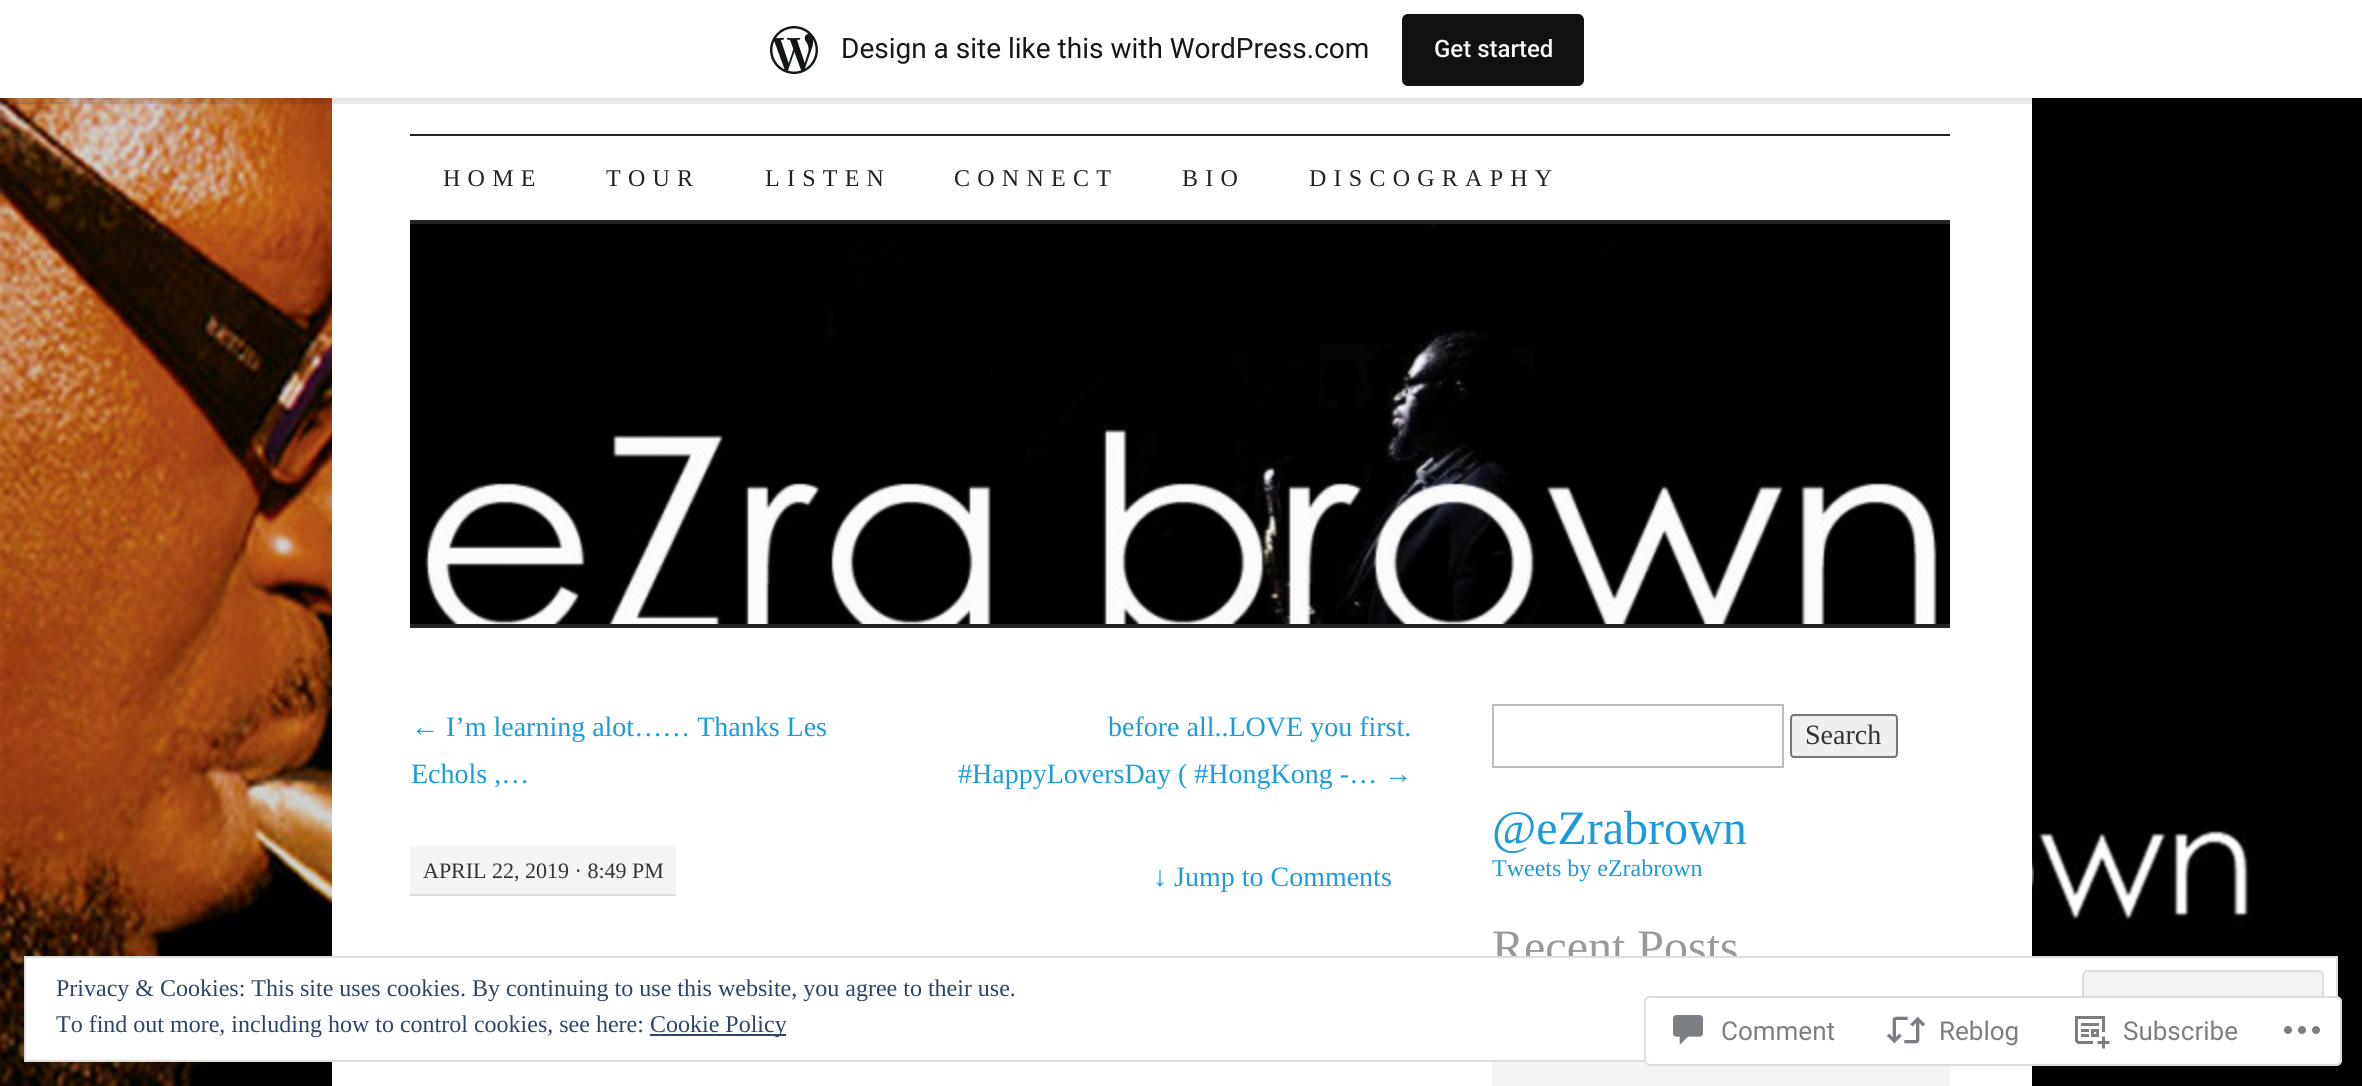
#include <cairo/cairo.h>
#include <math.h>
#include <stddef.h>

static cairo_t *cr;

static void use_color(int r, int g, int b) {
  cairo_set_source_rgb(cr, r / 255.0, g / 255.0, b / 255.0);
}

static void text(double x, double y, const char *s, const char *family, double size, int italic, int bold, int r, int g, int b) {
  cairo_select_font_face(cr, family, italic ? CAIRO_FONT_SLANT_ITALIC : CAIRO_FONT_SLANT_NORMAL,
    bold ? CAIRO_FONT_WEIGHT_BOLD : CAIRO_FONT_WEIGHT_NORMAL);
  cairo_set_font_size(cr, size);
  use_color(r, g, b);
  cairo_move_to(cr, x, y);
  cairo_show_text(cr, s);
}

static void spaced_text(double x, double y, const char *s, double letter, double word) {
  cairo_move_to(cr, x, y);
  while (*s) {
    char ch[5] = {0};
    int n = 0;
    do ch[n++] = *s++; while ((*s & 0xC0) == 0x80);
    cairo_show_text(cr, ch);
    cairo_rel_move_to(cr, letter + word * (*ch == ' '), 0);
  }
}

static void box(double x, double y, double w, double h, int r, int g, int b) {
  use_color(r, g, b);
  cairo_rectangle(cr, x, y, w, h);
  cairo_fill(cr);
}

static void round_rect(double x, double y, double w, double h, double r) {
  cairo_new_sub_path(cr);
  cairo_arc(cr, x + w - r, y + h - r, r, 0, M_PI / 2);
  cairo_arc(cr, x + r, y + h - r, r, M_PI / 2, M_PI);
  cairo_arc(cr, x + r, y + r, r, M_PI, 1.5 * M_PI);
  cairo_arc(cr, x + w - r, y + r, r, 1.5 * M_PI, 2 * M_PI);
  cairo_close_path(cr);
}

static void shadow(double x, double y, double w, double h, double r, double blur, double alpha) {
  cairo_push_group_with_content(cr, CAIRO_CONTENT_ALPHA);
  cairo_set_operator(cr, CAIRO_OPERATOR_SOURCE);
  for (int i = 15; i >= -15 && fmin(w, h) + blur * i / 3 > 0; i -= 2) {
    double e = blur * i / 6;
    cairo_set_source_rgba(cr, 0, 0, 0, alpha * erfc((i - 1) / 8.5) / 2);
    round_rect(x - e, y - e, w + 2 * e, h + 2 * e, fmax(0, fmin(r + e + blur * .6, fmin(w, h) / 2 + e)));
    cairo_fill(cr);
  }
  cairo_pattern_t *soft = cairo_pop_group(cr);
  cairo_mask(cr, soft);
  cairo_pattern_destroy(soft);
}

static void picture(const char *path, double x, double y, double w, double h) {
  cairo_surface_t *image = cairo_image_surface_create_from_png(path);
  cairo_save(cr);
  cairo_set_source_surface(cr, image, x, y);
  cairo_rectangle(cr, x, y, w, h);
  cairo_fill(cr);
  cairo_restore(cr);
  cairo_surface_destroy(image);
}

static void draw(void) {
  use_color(255, 255, 255);
  cairo_paint(cr);
  picture("img_01.png", 0, 98, 2362, 988);
  box(332, 98, 1700, 988, 255, 255, 255);
  use_color(0, 0, 0);
  shadow(0, 2, 2362, 98, 0, 2, 0.05);
  cairo_set_source_rgba(cr, 0, 0, 0, 0.08);
  cairo_new_path(cr);
  cairo_move_to(cr, 2, 98);
  cairo_line_to(cr, 2, 104);
  cairo_line_to(cr, 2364, 104);
  cairo_line_to(cr, 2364, 6);
  cairo_line_to(cr, 2362, 6);
  cairo_line_to(cr, 2362, 98);
  cairo_close_path(cr);
  cairo_fill(cr);
  box(0, 0, 2362, 98, 255, 255, 255);
  picture("img_02.png", 770, 26, 48, 48);
  use_color(17, 17, 17);
  round_rect(1402, 14, 182, 72, 6);
  cairo_fill(cr);
  box(410, 134, 1540, 2, 34, 34, 34);
  box(410, 220, 1540, 4, 34, 34, 34);
  picture("img_03.png", 410, 224, 1540, 400);
  box(410, 624, 1540, 4, 34, 34, 34);
  box(410, 846, 266, 48, 245, 245, 245);
  box(410, 894, 266, 2, 221, 221, 221);
  cairo_rectangle(cr, 1493, 705, 290, 62);
  use_color(187, 187, 187);
  cairo_stroke(cr);
  use_color(239, 239, 239);
  round_rect(1791, 715, 106, 42, 3);
  cairo_fill_preserve(cr);
  use_color(118, 118, 118);
  cairo_stroke(cr);
  box(1492, 1062, 458, 24, 245, 245, 245);
  text(841, 58, "Design a site like this with WordPress.com", "Roboto", 28, 0, 0, 23, 23, 23);
  text(1434, 57, "Get started", "Roboto Medium", 24, 0, 0, 246, 247, 247);
  cairo_select_font_face(cr, "Liberation Serif", CAIRO_FONT_SLANT_NORMAL, CAIRO_FONT_WEIGHT_NORMAL);
  use_color(34, 34, 34);
  spaced_text(443, 186, "HOME", 7.25, 0);
  spaced_text(606, 186, "TOUR", 7.25, 0);
  spaced_text(765, 186, "LISTEN", 7.25, 0);
  spaced_text(954, 186, "CONNECT", 7.25, 0);
  spaced_text(1182, 186, "BIO", 7.25, 0);
  spaced_text(1309, 186, "DISCOGRAPHY", 7.25, 0);
  text(411, 736, "← I’m learning alot…… Thanks Les", "Liberation Serif", 28, 0, 0, 28, 155, 220);
  text(411, 783, "Echols ,…", "Liberation Serif", 28, 0, 0, 28, 155, 220);
  text(1108, 736, "before all..LOVE you first.", "Liberation Serif", 28, 0, 0, 28, 155, 220);
  text(958, 783, "#HappyLoversDay ( #HongKong -… →", "Liberation Serif", 28, 0, 0, 28, 155, 220);
  text(423, 878, "APRIL 22, 2019 · 8:49 PM", "Liberation Serif", 22, 0, 0, 51, 51, 51);
  text(1153, 886, "↓ Jump to Comments", "Liberation Serif", 28, 0, 0, 28, 155, 220);
  text(1805, 744, "Search", "Liberation Serif", 28, 0, 0, 51, 51, 51);
  text(1492, 844, "@eZrabrown", "Liberation Serif", 48, 0, 0, 28, 155, 220);
  text(1492, 876, "Tweets by eZrabrown", "Liberation Serif", 24, 0, 0, 28, 155, 220);
  text(1492, 963, "Recent Posts", "Liberation Serif", 48, 0, 0, 153, 153, 153);
  use_color(255, 255, 255);
  cairo_rectangle(cr, 25, 957, 2312, 104);
  cairo_fill_preserve(cr);
  use_color(222, 222, 222);
  cairo_stroke(cr);
  text(56, 996, "Privacy & Cookies: This site uses cookies. By continuing to use this website, you agree to their use.", "Liberation Serif", 24, 0, 0, 46, 68, 103);
  use_color(243, 243, 243);
  round_rect(2083, 971, 240, 76, 5);
  cairo_fill_preserve(cr);
  use_color(222, 222, 222);
  cairo_stroke(cr);
  text(56, 1032, "To find out more, including how to control cookies, see here:", "Liberation Serif", 24, 0, 0, 46, 68, 103);
  box(650, 1034, 136, 2, 46, 68, 103);
  text(650, 1032, "Cookie Policy", "Liberation Serif", 24, 0, 0, 46, 68, 103);
  cairo_set_source_rgba(cr, 1, 1, 1, 0.98);
  round_rect(1644, 996, 698, 70, 6);
  cairo_fill(cr);
  round_rect(1645, 997, 696, 68, 5);
  cairo_set_source_rgba(cr, 0.863, 0.863, 0.871, 0.98);
  cairo_stroke(cr);
  picture("img_04.png", 1673, 1015, 30, 30);
  text(1721, 1040, "Comment", "Roboto", 26, 0, 0, 123, 127, 133);
  picture("img_05.png", 1886, 1016, 40, 28);
  text(1939, 1040, "Reblog", "Roboto", 26, 0, 0, 123, 127, 133);
  picture("img_06.png", 2075, 1016, 35, 33);
  text(2123, 1040, "Subscribe", "Roboto", 26, 0, 0, 123, 127, 133);
  picture("img_07.png", 2284, 1026, 36, 8);
}

int main(void) {
  cairo_surface_t *surface = cairo_image_surface_create(CAIRO_FORMAT_RGB24, 2362, 1086);
  cr = cairo_create(surface);
  cairo_font_options_t *options = cairo_font_options_create();
  cairo_font_options_set_hint_metrics(options, CAIRO_HINT_METRICS_OFF);
  cairo_font_options_set_hint_style(options, CAIRO_HINT_STYLE_NONE);
  cairo_set_font_options(cr, options);
  cairo_set_miter_limit(cr, 4);
  draw();
  cairo_surface_write_to_png(surface, "out.png");
  cairo_font_options_destroy(options);
  cairo_destroy(cr);
  cairo_surface_destroy(surface);
  return 0;
}
